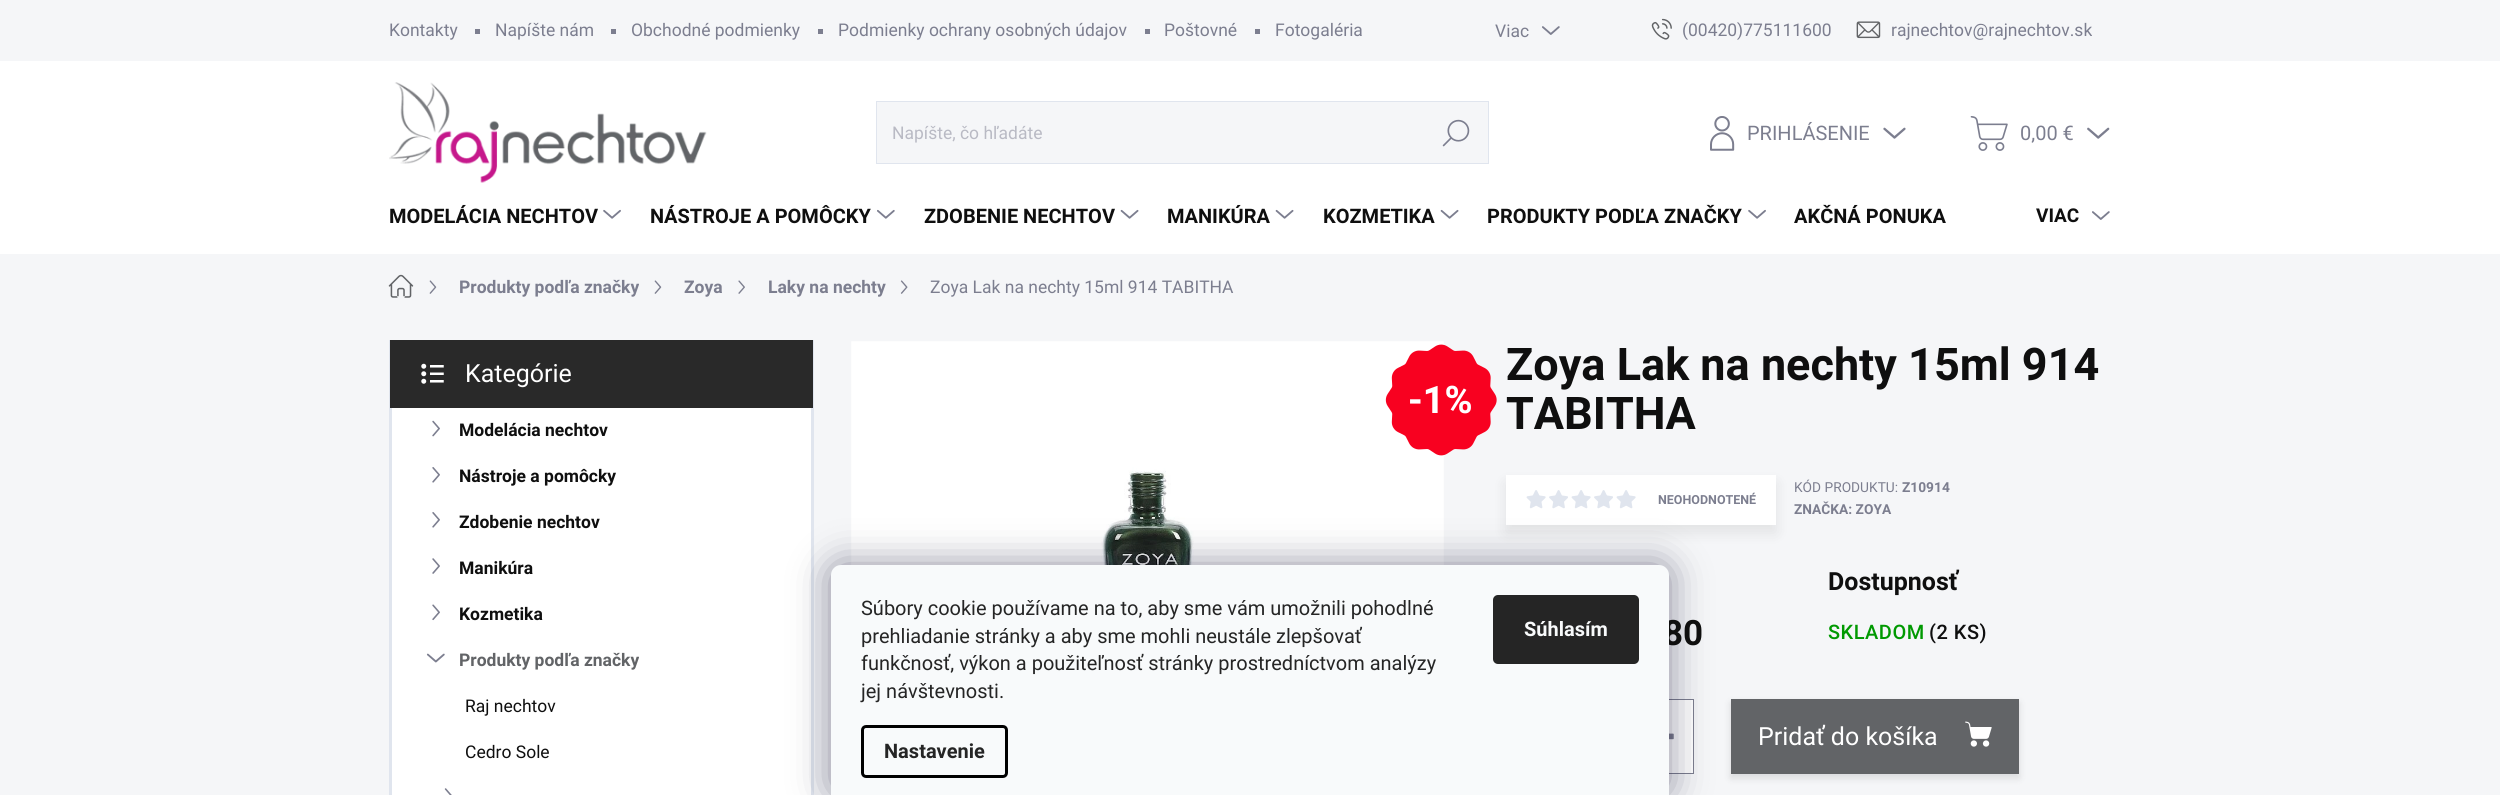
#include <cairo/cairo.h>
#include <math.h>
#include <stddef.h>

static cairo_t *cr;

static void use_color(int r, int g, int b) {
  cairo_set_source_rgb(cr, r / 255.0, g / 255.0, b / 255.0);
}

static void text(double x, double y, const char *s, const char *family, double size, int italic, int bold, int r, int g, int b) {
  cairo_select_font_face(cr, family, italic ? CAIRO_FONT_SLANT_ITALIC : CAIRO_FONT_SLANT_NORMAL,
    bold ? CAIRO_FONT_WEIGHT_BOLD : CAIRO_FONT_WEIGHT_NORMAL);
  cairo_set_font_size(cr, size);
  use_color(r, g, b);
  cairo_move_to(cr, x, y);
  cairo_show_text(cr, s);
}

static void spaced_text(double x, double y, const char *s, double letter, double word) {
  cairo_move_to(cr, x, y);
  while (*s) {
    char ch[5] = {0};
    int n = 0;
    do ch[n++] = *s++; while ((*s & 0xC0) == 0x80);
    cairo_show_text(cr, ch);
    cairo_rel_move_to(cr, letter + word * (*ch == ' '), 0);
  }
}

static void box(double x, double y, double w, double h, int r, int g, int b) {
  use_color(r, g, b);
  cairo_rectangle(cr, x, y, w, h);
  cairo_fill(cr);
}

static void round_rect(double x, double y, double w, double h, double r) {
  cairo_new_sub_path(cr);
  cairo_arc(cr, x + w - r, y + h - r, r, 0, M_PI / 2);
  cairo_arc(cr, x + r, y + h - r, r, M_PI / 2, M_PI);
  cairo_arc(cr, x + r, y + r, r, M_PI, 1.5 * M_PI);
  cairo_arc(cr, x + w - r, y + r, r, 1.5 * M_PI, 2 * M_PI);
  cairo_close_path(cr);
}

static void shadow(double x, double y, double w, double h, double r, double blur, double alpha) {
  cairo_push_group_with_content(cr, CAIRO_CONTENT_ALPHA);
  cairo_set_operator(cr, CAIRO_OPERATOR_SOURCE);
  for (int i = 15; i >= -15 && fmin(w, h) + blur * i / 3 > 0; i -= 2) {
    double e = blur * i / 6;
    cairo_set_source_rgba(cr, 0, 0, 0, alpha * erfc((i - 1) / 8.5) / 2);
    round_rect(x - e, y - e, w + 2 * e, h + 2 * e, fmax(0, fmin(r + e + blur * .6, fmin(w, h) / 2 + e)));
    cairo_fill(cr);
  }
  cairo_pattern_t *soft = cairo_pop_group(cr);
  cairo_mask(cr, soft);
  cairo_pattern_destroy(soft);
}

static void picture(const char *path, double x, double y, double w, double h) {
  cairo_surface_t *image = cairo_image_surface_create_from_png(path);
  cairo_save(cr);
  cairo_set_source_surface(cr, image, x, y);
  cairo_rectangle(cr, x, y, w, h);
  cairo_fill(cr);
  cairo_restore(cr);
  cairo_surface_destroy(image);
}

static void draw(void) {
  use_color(245, 246, 248);
  cairo_paint(cr);
  box(475, 29, 5, 5, 124, 126, 143);
  box(611, 29, 5, 5, 124, 126, 143);
  box(818, 29, 5, 5, 124, 126, 143);
  box(1145, 29, 5, 5, 124, 126, 143);
  box(1255, 29, 5, 5, 124, 126, 143);
  picture("img_01.png", 1542, 26, 18, 9);
  picture("img_02.png", 1651, 18, 21, 22);
  picture("img_03.png", 1856, 21, 25, 18);
  box(0, 61, 2500, 193, 255, 255, 255);
  picture("img_04.png", 389, 82, 318, 101);
  use_color(245, 246, 248);
  cairo_rectangle(cr, 876.5, 101.5, 612, 62);
  cairo_fill_preserve(cr);
  use_color(224, 229, 238);
  cairo_set_line_width(cr, 1);
  cairo_stroke(cr);
  picture("img_05.png", 1442, 119, 28, 28);
  picture("img_06.png", 1710, 116, 25, 35);
  picture("img_07.png", 1883, 127, 23, 12);
  picture("img_08.png", 1970, 116, 38, 35);
  picture("img_09.png", 2087, 127, 23, 12);
  picture("img_10.png", 603, 209, 18, 10);
  picture("img_11.png", 877, 209, 18, 10);
  picture("img_12.png", 1120, 209, 19, 10);
  picture("img_12.png", 1275, 209, 19, 10);
  picture("img_12.png", 1440, 209, 19, 10);
  picture("img_10.png", 1748, 209, 18, 10);
  picture("img_13.png", 2092, 211, 18, 9);
  picture("img_14.png", 388, 274, 26, 24);
  picture("img_15.png", 429, 280, 8, 14);
  picture("img_15.png", 654, 280, 8, 14);
  picture("img_16.png", 738, 280, 7, 14);
  picture("img_17.png", 900, 280, 8, 14);
  box(392, 408, 419, 387, 255, 255, 255);
  cairo_rectangle(cr, 390.5, 341.5, 422, 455);
  use_color(224, 229, 238);
  cairo_set_line_width(cr, 3);
  cairo_stroke(cr);
  box(390, 340, 423, 68, 41, 41, 41);
  picture("img_18.png", 421, 363, 23, 21);
  picture("img_19.png", 432, 420, 8, 17);
  picture("img_20.png", 432, 467, 8, 16);
  picture("img_20.png", 432, 512, 8, 16);
  picture("img_21.png", 432, 558, 8, 16);
  picture("img_22.png", 432, 604, 8, 17);
  picture("img_23.png", 426, 653, 19, 10);
  picture("img_24.png", 444, 788, 8, 7);
  picture("img_25.png", 851, 341, 593, 224);
  picture("img_26.png", 1385, 344, 112, 112);
  use_color(0, 0, 0);
  shadow(1506, 483, 270, 50, 0, 7.5, 0.08);
  box(1506, 475, 270, 50, 255, 255, 255);
  picture("img_27.png", 1526, 490, 20, 19);
  picture("img_28.png", 1549, 490, 19, 19);
  picture("img_27.png", 1571, 490, 20, 19);
  picture("img_28.png", 1594, 490, 19, 19);
  picture("img_27.png", 1616, 490, 20, 19);
  box(1669, 700, 24, 73, 255, 255, 255);
  cairo_rectangle(cr, 1506.5, 699.5, 187, 74);
  use_color(124, 126, 143);
  cairo_set_line_width(cr, 1);
  cairo_stroke(cr);
  picture("img_29.png", 1669, 733, 5, 7);
  use_color(0, 0, 0);
  shadow(1731, 703, 288, 75, 0, 4, 0.12);
  box(1731, 699, 288, 75, 98, 100, 103);
  picture("img_30.png", 1965, 721, 27, 26);
  use_color(27, 25, 57);
  shadow(831, 565, 838, 230, 10, 19, 0.5);
  text(389, 36, "Kontakty", "Roboto", 17.5, 0, 0, 124, 126, 143);
  text(495, 36, "Napíšte nám", "Roboto", 17.5, 0, 0, 124, 126, 143);
  text(631, 36, "Obchodné podmienky", "Roboto", 17.5, 0, 0, 124, 126, 143);
  text(838, 36, "Podmienky ochrany osobných údajov", "Roboto", 17.5, 0, 0, 124, 126, 143);
  text(1164, 36, "Poštovné", "Roboto", 17.5, 0, 0, 124, 126, 143);
  text(1275, 36, "Fotogaléria", "Roboto", 17.5, 0, 0, 124, 126, 143);
  text(1495, 37, "Viac", "Roboto", 17.5, 0, 0, 124, 126, 143);
  text(1682, 36, "(00420)775111600", "Roboto", 17.5, 0, 0, 124, 126, 143);
  text(1891, 36, "rajnechtov@rajnechtov.sk", "Roboto", 17.5, 0, 0, 124, 126, 143);
  text(892, 139, "Napíšte, čo hľadáte", "Roboto", 17.5, 0, 0, 185, 186, 196);
  text(1747, 140, "PRIHLÁSENIE", "Roboto", 20, 0, 0, 124, 126, 143);
  text(2020, 140, "0,00 €", "Roboto", 20, 0, 0, 124, 126, 143);
  text(389, 223, "MODELÁCIA NECHTOV", "Roboto", 20, 0, 1, 15, 15, 15);
  text(650, 223, "NÁSTROJE A POMÔCKY", "Roboto", 20, 0, 1, 15, 15, 15);
  text(924, 223, "ZDOBENIE NECHTOV", "Roboto", 20, 0, 1, 15, 15, 15);
  text(1167, 223, "MANIKÚRA", "Roboto", 20, 0, 1, 15, 15, 15);
  text(1323, 223, "KOZMETIKA", "Roboto", 20, 0, 1, 15, 15, 15);
  text(1487, 223, "PRODUKTY PODĽA ZNAČKY", "Roboto", 20, 0, 1, 15, 15, 15);
  text(1794, 223, "AKČNÁ PONUKA", "Roboto", 20, 0, 1, 15, 15, 15);
  text(2036, 222, "VIAC", "Roboto", 19, 0, 1, 15, 15, 15);
  text(459, 293, "Produkty podľa značky", "Roboto", 17.5, 0, 1, 124, 126, 143);
  text(684, 293, "Zoya", "Roboto", 17.5, 0, 1, 124, 126, 143);
  text(768, 293, "Laky na nechty", "Roboto", 17.5, 0, 1, 124, 126, 143);
  text(930, 293, "Zoya Lak na nechty 15ml 914 TABITHA", "Roboto", 17.5, 0, 0, 124, 126, 143);
  text(465, 382, "Kategórie", "Roboto", 25, 0, 0, 255, 255, 255);
  text(459, 436, "Modelácia nechtov", "Roboto", 17.5, 0, 1, 15, 15, 15);
  text(459, 482, "Nástroje a pomôcky", "Roboto", 17.5, 0, 1, 15, 15, 15);
  text(459, 528, "Zdobenie nechtov", "Roboto", 17.5, 0, 1, 15, 15, 15);
  text(459, 574, "Manikúra", "Roboto", 17.5, 0, 1, 15, 15, 15);
  text(459, 620, "Kozmetika", "Roboto", 17.5, 0, 1, 15, 15, 15);
  text(459, 666, "Produkty podľa značky", "Roboto", 17.5, 0, 1, 98, 100, 103);
  text(465, 712, "Raj nechtov", "Roboto", 17.5, 0, 0, 15, 15, 15);
  text(465, 758, "Cedro Sole", "Roboto", 17.5, 0, 0, 15, 15, 15);
  text(1408, 413, "-1%", "Roboto", 38, 0, 1, 255, 255, 255);
  text(1506, 380, "Zoya Lak na nechty 15ml 914", "Roboto", 45, 0, 1, 15, 15, 15);
  text(1506, 429, "TABITHA", "Roboto", 45, 0, 1, 15, 15, 15);
  text(1658, 504, "NEOHODNOTENÉ", "Roboto", 12.5, 0, 1, 124, 126, 143);
  text(1794, 492, "KÓD PRODUKTU:", "Roboto", 13.75, 0, 0, 124, 126, 143);
  text(1902, 492, "Z10914", "Roboto", 13.75, 0, 1, 124, 126, 143);
  text(1794, 514, "ZNAČKA: ZOYA", "Roboto", 13.75, 0, 1, 124, 126, 143);
  text(1663, 645, "80", "Roboto", 35, 0, 1, 15, 15, 15);
  text(1828, 590, "Dostupnosť", "Roboto", 25, 0, 1, 15, 15, 15);
  cairo_select_font_face(cr, "Roboto Medium", CAIRO_FONT_SLANT_NORMAL, CAIRO_FONT_WEIGHT_NORMAL);
  cairo_set_font_size(cr, 20);
  use_color(0, 153, 1);
  spaced_text(1828, 639, "SKLADOM", 0.5, 0);
  use_color(15, 15, 15);
  spaced_text(1929, 639, "(2 KS)", 0.5, 0);
  text(1758, 745, "Pridať do košíka", "Roboto", 25, 0, 0, 255, 255, 255);
  use_color(248, 250, 251);
  cairo_new_path(cr);
  cairo_move_to(cr, 841, 565);
  cairo_line_to(cr, 1659, 565);
  cairo_curve_to(cr, 1664.5, 565, 1669, 569.5, 1669, 575);
  cairo_line_to(cr, 1669, 795);
  cairo_line_to(cr, 831, 795);
  cairo_line_to(cr, 831, 575);
  cairo_curve_to(cr, 831, 569.5, 835.5, 565, 841, 565);
  cairo_close_path(cr);
  cairo_fill(cr);
  text(861, 615, "Súbory cookie používame na to, aby sme vám umožnili pohodlné", "Roboto", 20, 0, 0, 37, 37, 37);
  text(861, 643, "prehliadanie stránky a aby sme mohli neustále zlepšovať", "Roboto", 20, 0, 0, 37, 37, 37);
  text(861, 670, "funkčnosť, výkon a použiteľnosť stránky prostredníctvom analýzy", "Roboto", 20, 0, 0, 37, 37, 37);
  text(861, 698, "jej návštevnosti.", "Roboto", 20, 0, 0, 37, 37, 37);
  round_rect(862.5, 726.5, 144, 50, 3.5);
  use_color(0, 0, 0);
  cairo_set_line_width(cr, 3);
  cairo_stroke(cr);
  text(884, 758, "Nastavenie", "Roboto", 20, 0, 1, 37, 37, 37);
  round_rect(1493, 595, 146, 69, 5);
  cairo_fill(cr);
  text(1524, 636, "Súhlasím", "Roboto", 20, 0, 1, 248, 250, 251);
}

int main(void) {
  cairo_surface_t *surface = cairo_image_surface_create(CAIRO_FORMAT_RGB24, 2500, 795);
  cr = cairo_create(surface);
  cairo_font_options_t *options = cairo_font_options_create();
  cairo_font_options_set_hint_metrics(options, CAIRO_HINT_METRICS_OFF);
  cairo_font_options_set_hint_style(options, CAIRO_HINT_STYLE_NONE);
  cairo_set_font_options(cr, options);
  cairo_set_miter_limit(cr, 4);
  draw();
  cairo_surface_write_to_png(surface, "out.png");
  cairo_font_options_destroy(options);
  cairo_destroy(cr);
  cairo_surface_destroy(surface);
  return 0;
}
